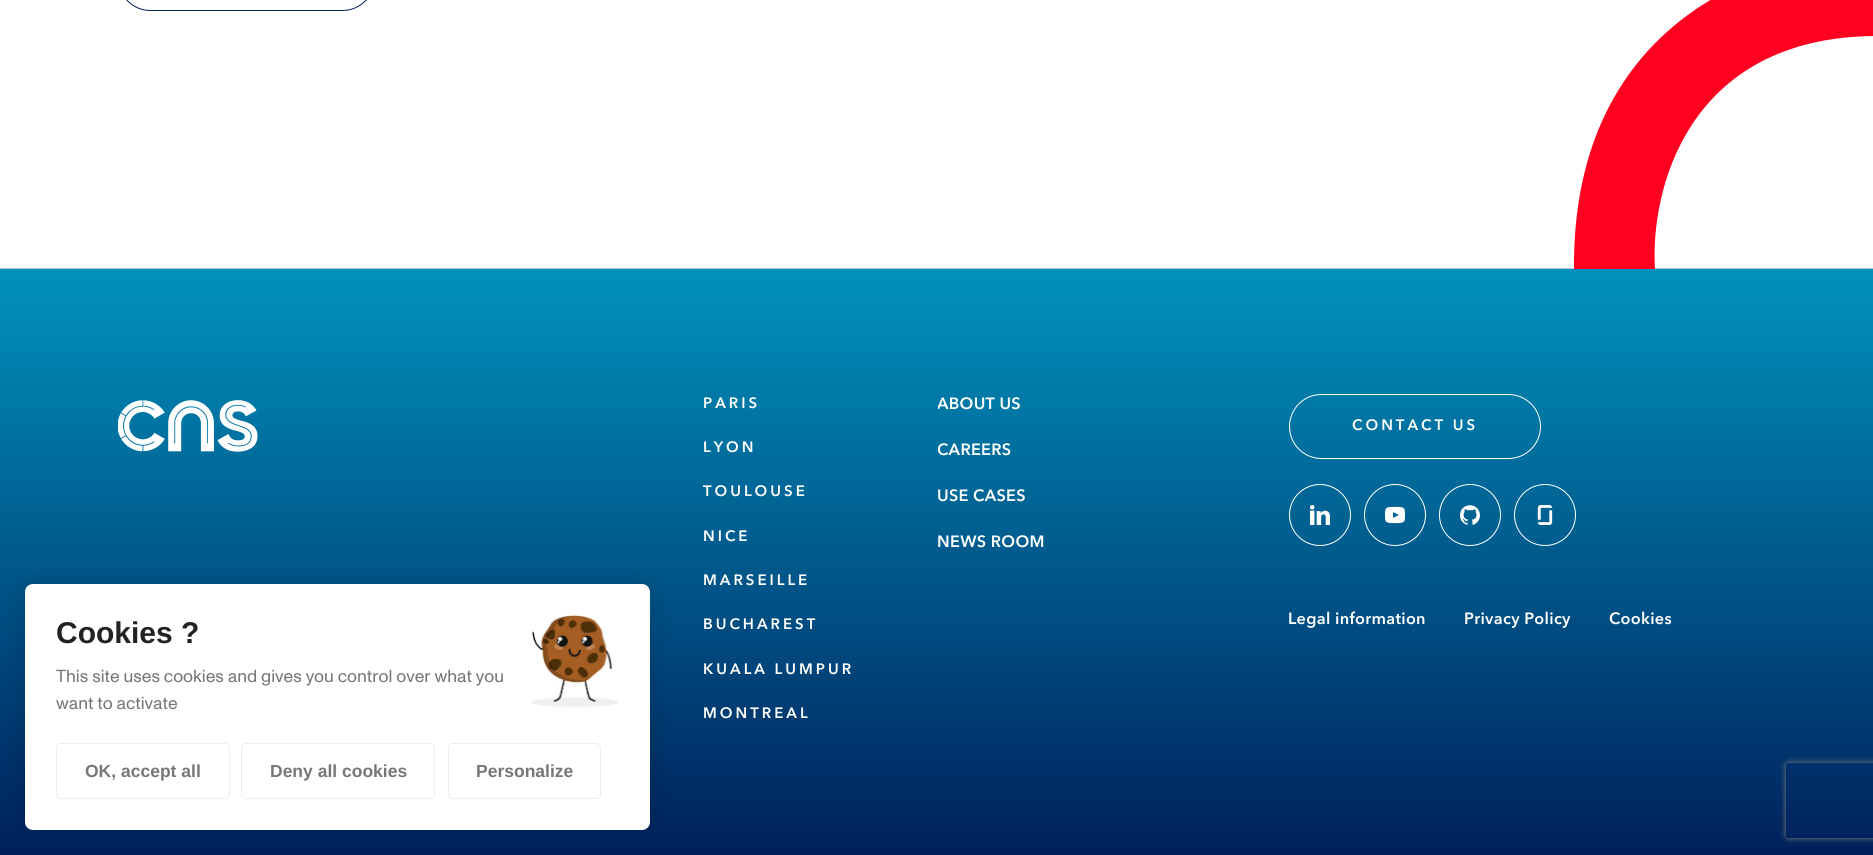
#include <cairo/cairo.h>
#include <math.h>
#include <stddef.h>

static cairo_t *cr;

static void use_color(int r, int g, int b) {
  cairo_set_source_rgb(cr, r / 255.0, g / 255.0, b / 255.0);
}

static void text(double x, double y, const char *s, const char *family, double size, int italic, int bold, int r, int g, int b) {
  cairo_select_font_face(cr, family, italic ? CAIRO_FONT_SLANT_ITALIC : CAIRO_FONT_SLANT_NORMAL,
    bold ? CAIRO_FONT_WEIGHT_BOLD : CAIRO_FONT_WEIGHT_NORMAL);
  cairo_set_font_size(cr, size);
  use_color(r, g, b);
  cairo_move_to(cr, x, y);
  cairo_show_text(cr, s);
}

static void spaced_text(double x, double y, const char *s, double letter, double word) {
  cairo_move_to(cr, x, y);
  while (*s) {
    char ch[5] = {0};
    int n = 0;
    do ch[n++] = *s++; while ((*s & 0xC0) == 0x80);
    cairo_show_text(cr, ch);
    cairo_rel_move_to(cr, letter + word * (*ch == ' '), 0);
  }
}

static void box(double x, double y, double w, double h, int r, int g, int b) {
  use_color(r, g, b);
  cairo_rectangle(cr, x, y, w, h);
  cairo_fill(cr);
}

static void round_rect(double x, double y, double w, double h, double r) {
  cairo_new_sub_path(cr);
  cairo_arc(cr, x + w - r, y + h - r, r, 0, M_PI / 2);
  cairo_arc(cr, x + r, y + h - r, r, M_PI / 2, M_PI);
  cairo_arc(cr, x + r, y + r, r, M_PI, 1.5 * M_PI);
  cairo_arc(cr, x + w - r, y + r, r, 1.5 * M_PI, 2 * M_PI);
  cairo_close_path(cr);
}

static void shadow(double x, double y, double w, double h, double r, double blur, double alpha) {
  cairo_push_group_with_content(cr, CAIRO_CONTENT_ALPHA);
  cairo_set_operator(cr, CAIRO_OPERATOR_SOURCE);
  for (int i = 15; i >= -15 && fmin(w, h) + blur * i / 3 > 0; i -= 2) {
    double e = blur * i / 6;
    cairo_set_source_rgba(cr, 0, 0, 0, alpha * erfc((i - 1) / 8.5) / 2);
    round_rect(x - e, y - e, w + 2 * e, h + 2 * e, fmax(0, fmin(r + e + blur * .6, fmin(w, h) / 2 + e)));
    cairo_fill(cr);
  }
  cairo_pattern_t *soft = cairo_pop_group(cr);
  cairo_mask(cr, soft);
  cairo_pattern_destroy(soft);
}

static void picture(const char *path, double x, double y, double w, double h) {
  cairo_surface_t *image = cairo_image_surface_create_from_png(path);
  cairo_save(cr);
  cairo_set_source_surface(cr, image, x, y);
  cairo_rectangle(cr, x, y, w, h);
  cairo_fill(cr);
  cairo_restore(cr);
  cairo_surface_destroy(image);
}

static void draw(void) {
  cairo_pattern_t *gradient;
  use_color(255, 255, 255);
  cairo_paint(cr);
  gradient = cairo_pattern_create_linear(937, 269, 937, 855);
  cairo_pattern_add_color_stop_rgba(gradient, 0, 0, 0.573, 0.737, 1);
  cairo_pattern_add_color_stop_rgba(gradient, 1, 0, 0.125, 0.357, 1);
  cairo_set_source(cr, gradient);
  cairo_pattern_destroy(gradient);
  cairo_rectangle(cr, 0, 269, 1873, 586);
  cairo_fill(cr);
  use_color(0, 0, 0);
  shadow(25, 584, 625, 246, 8, 12.5, 0.15);
  use_color(255, 255, 255);
  round_rect(25, 584, 625, 246, 8);
  cairo_fill(cr);
  picture("img_01.png", 532, 615, 87, 93);
  round_rect(56.5, 743.5, 173, 55, 4.5);
  use_color(237, 237, 237);
  cairo_set_line_width(cr, 1);
  cairo_stroke(cr);
  round_rect(241.5, 743.5, 193, 55, 4.5);
  cairo_stroke(cr);
  round_rect(448.5, 743.5, 152, 55, 4.5);
  cairo_stroke(cr);
  round_rect(118.5, -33.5, 256, 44, 32);
  use_color(0, 32, 91);
  cairo_stroke(cr);
  box(0, 268, 1873, 1, 191, 199, 214);
  use_color(255, 0, 32);
  cairo_new_path(cr);
  cairo_move_to(cr, 1574, 269);
  cairo_line_to(cr, 1655, 269);
  cairo_curve_to(cr, 1650, 192, 1686, 38, 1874, 36);
  cairo_line_to(cr, 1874, -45);
  cairo_curve_to(cr, 1773, -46, 1572, 16, 1574, 269);
  cairo_close_path(cr);
  cairo_fill(cr);
  picture("img_02.png", 118, 400, 140, 52);
  round_rect(1289.5, 394.5, 251, 64, 32);
  use_color(255, 255, 255);
  cairo_stroke(cr);
  cairo_arc(cr, 1320, 515, 30.5, 0, 2 * M_PI);
  cairo_stroke(cr);
  picture("img_03.png", 1310, 505, 20, 20);
  cairo_arc(cr, 1395, 515, 30.5, 0, 2 * M_PI);
  cairo_stroke(cr);
  picture("img_04.png", 1385, 506, 20, 18);
  cairo_arc(cr, 1470, 515, 30.5, 0, 2 * M_PI);
  cairo_stroke(cr);
  picture("img_05.png", 1460, 505, 20, 20);
  cairo_arc(cr, 1545, 515, 30.5, 0, 2 * M_PI);
  cairo_stroke(cr);
  picture("img_06.png", 1537, 505, 16, 20);
  cairo_save(cr);
  cairo_set_fill_rule(cr, CAIRO_FILL_RULE_EVEN_ODD);
  cairo_new_path(cr);
  cairo_move_to(cr, 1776, 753);
  cairo_line_to(cr, 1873, 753);
  cairo_line_to(cr, 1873, 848);
  cairo_line_to(cr, 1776, 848);
  cairo_close_path(cr);
  cairo_move_to(cr, 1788.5, 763);
  cairo_line_to(cr, 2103.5, 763);
  cairo_curve_to(cr, 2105, 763, 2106, 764, 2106, 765.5);
  cairo_line_to(cr, 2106, 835.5);
  cairo_curve_to(cr, 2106, 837, 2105, 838, 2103.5, 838);
  cairo_line_to(cr, 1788.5, 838);
  cairo_curve_to(cr, 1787, 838, 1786, 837, 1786, 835.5);
  cairo_line_to(cr, 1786, 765.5);
  cairo_curve_to(cr, 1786, 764, 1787, 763, 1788.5, 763);
  cairo_close_path(cr);
  cairo_clip(cr);
  use_color(128, 128, 128);
  shadow(1786, 763, 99, 75, 2.5, 3, 1);
  cairo_restore(cr);
  text(56, 643, "Cookies ?", "Liberation Sans", 30, 0, 1, 34, 34, 34);
  text(56, 682, "This site uses cookies and gives you control over what you", "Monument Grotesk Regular", 17.5, 0, 0, 119, 119, 119);
  text(56, 709, "want to activate", "Monument Grotesk Regular", 17.5, 0, 0, 119, 119, 119);
  text(85, 777, "OK, accept all", "Liberation Sans", 17.5, 0, 1, 119, 119, 119);
  text(270, 777, "Deny all cookies", "Liberation Sans", 17.5, 0, 1, 119, 119, 119);
  text(476, 777, "Personalize", "Liberation Sans", 17.5, 0, 1, 119, 119, 119);
  cairo_select_font_face(cr, "Avenir Next SemiBold", CAIRO_FONT_SLANT_NORMAL, CAIRO_FONT_WEIGHT_NORMAL);
  cairo_set_font_size(cr, 15);
  use_color(255, 255, 255);
  spaced_text(703, 408, "PARIS", 3, 0);
  spaced_text(703, 452, "LYON", 3, 0);
  spaced_text(703, 496, "TOULOUSE", 3, 0);
  spaced_text(703, 541, "NICE", 3, 0);
  spaced_text(703, 585, "MARSEILLE", 3, 0);
  spaced_text(703, 629, "BUCHAREST", 3, 0);
  spaced_text(703, 674, "KUALA LUMPUR", 3, 0);
  spaced_text(703, 718, "MONTREAL", 3, 0);
  cairo_save(cr);
  cairo_rectangle(cr, 938, 394, 83, 22);
  cairo_clip(cr);
  cairo_set_font_size(cr, 16.25);
  spaced_text(937, 409, "ABOUT US", 0.3, 0);
  cairo_restore(cr);
  cairo_save(cr);
  cairo_rectangle(cr, 938, 440, 73, 23);
  cairo_clip(cr);
  cairo_set_font_size(cr, 16.25);
  spaced_text(937, 455, "CAREERS", 0.3, 0);
  cairo_restore(cr);
  cairo_set_font_size(cr, 16.25);
  spaced_text(937, 501, "USE CASES", 0.3, 0);
  spaced_text(937, 547, "NEWS ROOM", 0.3, 0);
  cairo_set_font_size(cr, 15);
  spaced_text(1352, 430, "CONTACT US", 3, 0);
  cairo_set_font_size(cr, 16.25);
  spaced_text(1288, 624, "Legal information", 0.3, 0);
  spaced_text(1464, 624, "Privacy Policy", 0.3, 0);
  spaced_text(1609, 624, "Cookies", 0.3, 0);
}

int main(void) {
  cairo_surface_t *surface = cairo_image_surface_create(CAIRO_FORMAT_RGB24, 1873, 855);
  cr = cairo_create(surface);
  cairo_font_options_t *options = cairo_font_options_create();
  cairo_font_options_set_hint_metrics(options, CAIRO_HINT_METRICS_OFF);
  cairo_font_options_set_hint_style(options, CAIRO_HINT_STYLE_NONE);
  cairo_set_font_options(cr, options);
  cairo_set_miter_limit(cr, 4);
  draw();
  cairo_surface_write_to_png(surface, "out.png");
  cairo_font_options_destroy(options);
  cairo_destroy(cr);
  cairo_surface_destroy(surface);
  return 0;
}
